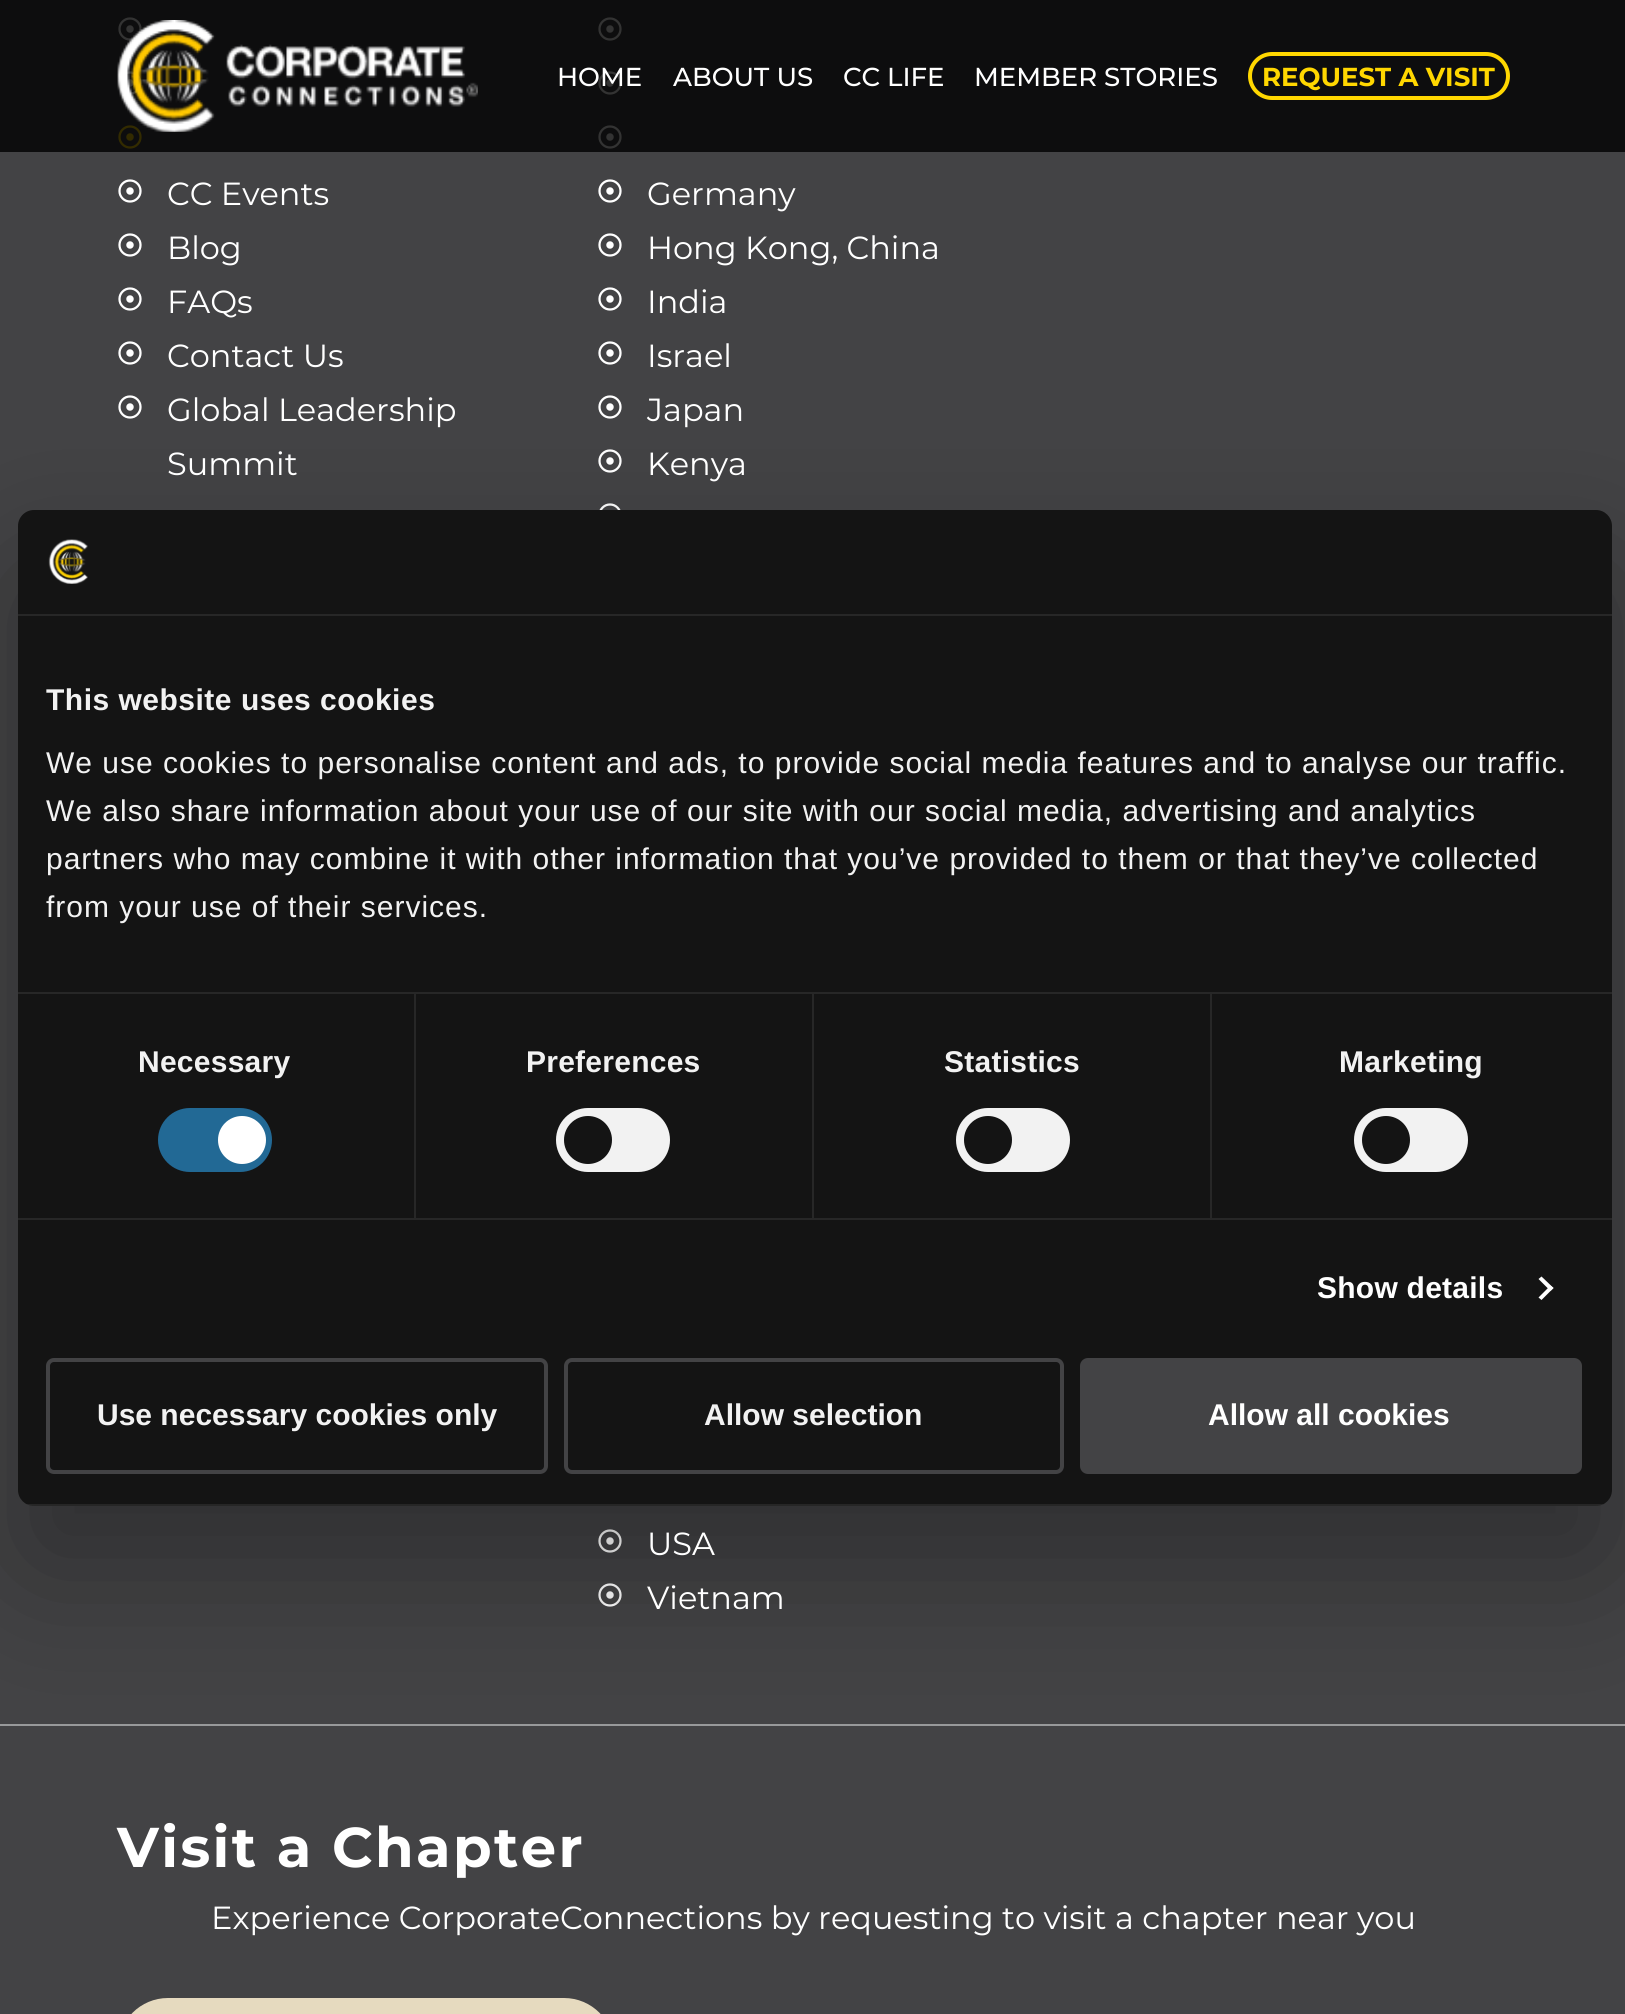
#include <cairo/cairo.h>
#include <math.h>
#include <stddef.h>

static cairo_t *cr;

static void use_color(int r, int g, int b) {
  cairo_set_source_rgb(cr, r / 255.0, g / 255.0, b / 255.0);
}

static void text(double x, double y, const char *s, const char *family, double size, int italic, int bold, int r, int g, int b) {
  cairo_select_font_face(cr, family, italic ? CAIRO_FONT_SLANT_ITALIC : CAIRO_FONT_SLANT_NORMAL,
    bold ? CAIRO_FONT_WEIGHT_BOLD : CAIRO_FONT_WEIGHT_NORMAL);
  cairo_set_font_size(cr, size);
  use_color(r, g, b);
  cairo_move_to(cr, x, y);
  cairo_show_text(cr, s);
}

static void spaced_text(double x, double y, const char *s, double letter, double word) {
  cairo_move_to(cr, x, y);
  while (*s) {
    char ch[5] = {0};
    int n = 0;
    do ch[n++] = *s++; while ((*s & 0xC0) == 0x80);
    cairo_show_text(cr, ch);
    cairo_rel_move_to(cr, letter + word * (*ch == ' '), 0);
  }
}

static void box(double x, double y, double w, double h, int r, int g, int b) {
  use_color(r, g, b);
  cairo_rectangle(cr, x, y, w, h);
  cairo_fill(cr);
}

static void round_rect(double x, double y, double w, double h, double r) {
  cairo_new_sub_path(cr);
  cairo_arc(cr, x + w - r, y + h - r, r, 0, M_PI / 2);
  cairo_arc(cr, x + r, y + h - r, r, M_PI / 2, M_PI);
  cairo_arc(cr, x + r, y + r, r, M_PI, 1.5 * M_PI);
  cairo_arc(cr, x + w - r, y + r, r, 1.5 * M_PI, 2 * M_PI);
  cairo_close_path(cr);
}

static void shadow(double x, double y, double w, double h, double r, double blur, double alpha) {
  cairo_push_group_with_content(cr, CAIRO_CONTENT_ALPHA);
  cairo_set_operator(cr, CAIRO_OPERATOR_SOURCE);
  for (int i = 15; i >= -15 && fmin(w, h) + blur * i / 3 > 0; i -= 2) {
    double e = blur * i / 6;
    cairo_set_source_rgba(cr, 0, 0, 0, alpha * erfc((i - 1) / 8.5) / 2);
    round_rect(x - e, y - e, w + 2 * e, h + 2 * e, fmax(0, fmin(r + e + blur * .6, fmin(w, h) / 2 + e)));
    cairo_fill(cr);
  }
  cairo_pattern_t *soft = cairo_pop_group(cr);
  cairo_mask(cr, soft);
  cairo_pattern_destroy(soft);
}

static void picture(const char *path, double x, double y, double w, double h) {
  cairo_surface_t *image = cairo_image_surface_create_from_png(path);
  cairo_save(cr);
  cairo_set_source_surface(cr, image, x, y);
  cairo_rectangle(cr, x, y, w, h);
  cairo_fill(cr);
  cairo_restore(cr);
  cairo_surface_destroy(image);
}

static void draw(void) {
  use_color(67, 67, 69);
  cairo_paint(cr);
  picture("img_02.png", 118, 17, 24, 24);
  picture("img_02.png", 118, 71, 24, 24);
  picture("img_03.png", 118, 125, 24, 24);
  picture("img_02.png", 598, 17, 24, 24);
  picture("img_02.png", 598, 71, 24, 24);
  picture("img_02.png", 598, 125, 24, 24);
  cairo_set_source_rgba(cr, 0, 0, 0, 0.8);
  cairo_rectangle(cr, 0, 0, 1625, 152);
  cairo_fill(cr);
  picture("img_01.png", 117, 20, 361, 112);
  round_rect(1250, 54, 258, 44, 22);
  use_color(255, 215, 0);
  cairo_set_line_width(cr, 4);
  cairo_stroke(cr);
  picture("img_02.png", 118, 179, 24, 24);
  picture("img_02.png", 118, 233, 24, 24);
  picture("img_02.png", 118, 287, 24, 24);
  picture("img_02.png", 118, 341, 24, 24);
  picture("img_02.png", 118, 395, 24, 24);
  picture("img_02.png", 598, 179, 24, 24);
  picture("img_02.png", 598, 233, 24, 24);
  picture("img_02.png", 598, 287, 24, 24);
  picture("img_02.png", 598, 341, 24, 24);
  picture("img_02.png", 598, 395, 24, 24);
  picture("img_02.png", 598, 449, 24, 24);
  picture("img_04.png", 599, 503, 22, 7);
  picture("img_02.png", 598, 1529, 24, 24);
  picture("img_02.png", 598, 1583, 24, 24);
  box(0, 1724, 1625, 2, 152, 153, 154);
  use_color(230, 218, 191);
  round_rect(118, 1998, 496, 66, 50);
  cairo_fill(cr);
  use_color(0, 0, 0);
  shadow(18, 574, 1594, 996, 16, 68, 0.3);
  use_color(20, 20, 20);
  round_rect(18, 510, 1594, 996, 16);
  cairo_fill(cr);
  box(18, 614, 1594, 2, 39, 39, 39);
  picture("img_05.png", 48, 539, 40, 45);
  box(18, 992, 1594, 2, 39, 39, 39);
  box(18, 1218, 1594, 2, 39, 39, 39);
  box(414, 994, 2, 224, 39, 39, 39);
  use_color(34, 105, 149);
  round_rect(158, 1108, 114, 64, 32);
  cairo_fill(cr);
  use_color(255, 255, 255);
  cairo_arc(cr, 242, 1140, 24, 0, 2 * M_PI);
  cairo_fill(cr);
  box(812, 994, 2, 224, 39, 39, 39);
  use_color(242, 242, 242);
  round_rect(556, 1108, 114, 64, 32);
  cairo_fill(cr);
  use_color(20, 20, 20);
  cairo_arc(cr, 588, 1140, 24, 0, 2 * M_PI);
  cairo_fill(cr);
  box(1210, 994, 2, 224, 39, 39, 39);
  use_color(242, 242, 242);
  round_rect(956, 1108, 114, 64, 32);
  cairo_fill(cr);
  use_color(20, 20, 20);
  cairo_arc(cr, 988, 1140, 24, 0, 2 * M_PI);
  cairo_fill(cr);
  use_color(242, 242, 242);
  round_rect(1354, 1108, 114, 64, 32);
  cairo_fill(cr);
  use_color(20, 20, 20);
  cairo_arc(cr, 1386, 1140, 24, 0, 2 * M_PI);
  cairo_fill(cr);
  use_color(255, 255, 255);
  cairo_new_path(cr);
  cairo_move_to(cr, 1541.5, 1276.5);
  cairo_line_to(cr, 1553.5, 1288);
  cairo_line_to(cr, 1550.5, 1291);
  cairo_line_to(cr, 1538.5, 1279);
  cairo_close_path(cr);
  cairo_fill(cr);
  cairo_new_path(cr);
  cairo_move_to(cr, 1550.5, 1285.5);
  cairo_line_to(cr, 1553.5, 1288);
  cairo_line_to(cr, 1541.5, 1300);
  cairo_line_to(cr, 1538.5, 1297.5);
  cairo_close_path(cr);
  cairo_fill(cr);
  cairo_save(cr);
  round_rect(18, 510, 1594, 996, 16);
  cairo_clip(cr);
  cairo_set_source_rgba(cr, 1, 1, 1, 0.08);
  cairo_rectangle(cr, 27, 1504, 1576, 2);
  cairo_fill(cr);
  cairo_restore(cr);
  round_rect(48, 1360, 498, 112, 6);
  use_color(67, 67, 69);
  cairo_stroke(cr);
  round_rect(566, 1360, 496, 112, 6);
  cairo_stroke(cr);
  round_rect(1082, 1360, 498, 112, 6);
  cairo_fill_preserve(cr);
  cairo_stroke(cr);
  text(557, 86, "HOME", "Montserrat Medium", 26, 0, 0, 255, 255, 255);
  text(673, 86, "ABOUT US", "Montserrat Medium", 26, 0, 0, 255, 255, 255);
  text(843, 86, "CC LIFE", "Montserrat Medium", 26, 0, 0, 255, 255, 255);
  text(974, 86, "MEMBER STORIES", "Montserrat Medium", 26, 0, 0, 255, 255, 255);
  text(1262, 86, "REQUEST A VISIT", "Montserrat", 26, 0, 1, 255, 215, 0);
  text(167, 205, "CC Events", "Montserrat", 32, 0, 0, 255, 255, 255);
  text(167, 259, "Blog", "Montserrat", 32, 0, 0, 255, 255, 255);
  text(167, 313, "FAQs", "Montserrat", 32, 0, 0, 255, 255, 255);
  text(167, 367, "Contact Us", "Montserrat", 32, 0, 0, 255, 255, 255);
  text(167, 421, "Global Leadership", "Montserrat", 32, 0, 0, 255, 255, 255);
  text(167, 475, "Summit", "Montserrat", 32, 0, 0, 255, 255, 255);
  text(647, 205, "Germany", "Montserrat", 32, 0, 0, 255, 255, 255);
  text(647, 259, "Hong Kong, China", "Montserrat", 32, 0, 0, 255, 255, 255);
  text(647, 313, "India", "Montserrat", 32, 0, 0, 255, 255, 255);
  text(647, 367, "Israel", "Montserrat", 32, 0, 0, 255, 255, 255);
  text(647, 421, "Japan", "Montserrat", 32, 0, 0, 255, 255, 255);
  text(647, 475, "Kenya", "Montserrat", 32, 0, 0, 255, 255, 255);
  text(647, 1555, "USA", "Montserrat", 32, 0, 0, 255, 255, 255);
  text(647, 1609, "Vietnam", "Montserrat", 32, 0, 0, 255, 255, 255);
  cairo_select_font_face(cr, "Montserrat", CAIRO_FONT_SLANT_NORMAL, CAIRO_FONT_WEIGHT_BOLD);
  cairo_set_font_size(cr, 56);
  spaced_text(117, 1867, "Visit a Chapter", 2.4, 0);
  text(211, 1929, "Experience CorporateConnections by requesting to visit a chapter near you", "Montserrat", 32, 0, 0, 255, 255, 255);
  cairo_select_font_face(cr, "Liberation Sans", CAIRO_FONT_SLANT_NORMAL, CAIRO_FONT_WEIGHT_BOLD);
  cairo_set_font_size(cr, 30);
  use_color(242, 242, 242);
  spaced_text(46, 710, "This website uses cookies", 0.5, 0);
  cairo_select_font_face(cr, "Liberation Sans", CAIRO_FONT_SLANT_NORMAL, CAIRO_FONT_WEIGHT_NORMAL);
  spaced_text(46, 773, "We use cookies to personalise content and ads, to provide social media features and to analyse our traffic.", 1, 0);
  spaced_text(46, 821, "We also share information about your use of our site with our social media, advertising and analytics", 1, 0);
  spaced_text(46, 869, "partners who may combine it with other information that you’ve provided to them or that they’ve collected", 1, 0);
  spaced_text(46, 917, "from your use of their services.", 1, 0);
  cairo_select_font_face(cr, "Liberation Sans", CAIRO_FONT_SLANT_NORMAL, CAIRO_FONT_WEIGHT_BOLD);
  spaced_text(138, 1072, "Necessary", 0.25, 0);
  spaced_text(526, 1072, "Preferences", 0.25, 0);
  spaced_text(944, 1072, "Statistics", 0.25, 0);
  spaced_text(1339, 1072, "Marketing", 0.25, 0);
  use_color(255, 255, 255);
  spaced_text(1317, 1298, "Show details", 0.25, 0);
  text(97, 1425, "Use necessary cookies only", "Liberation Sans", 30, 0, 1, 242, 242, 242);
  text(704, 1425, "Allow selection", "Liberation Sans", 30, 0, 1, 242, 242, 242);
  text(1208, 1425, "Allow all cookies", "Liberation Sans", 30, 0, 1, 255, 255, 255);
}

int main(void) {
  cairo_surface_t *surface = cairo_image_surface_create(CAIRO_FORMAT_RGB24, 1625, 2014);
  cr = cairo_create(surface);
  cairo_font_options_t *options = cairo_font_options_create();
  cairo_font_options_set_hint_metrics(options, CAIRO_HINT_METRICS_OFF);
  cairo_font_options_set_hint_style(options, CAIRO_HINT_STYLE_NONE);
  cairo_set_font_options(cr, options);
  cairo_set_miter_limit(cr, 4);
  draw();
  cairo_surface_write_to_png(surface, "out.png");
  cairo_font_options_destroy(options);
  cairo_destroy(cr);
  cairo_surface_destroy(surface);
  return 0;
}
